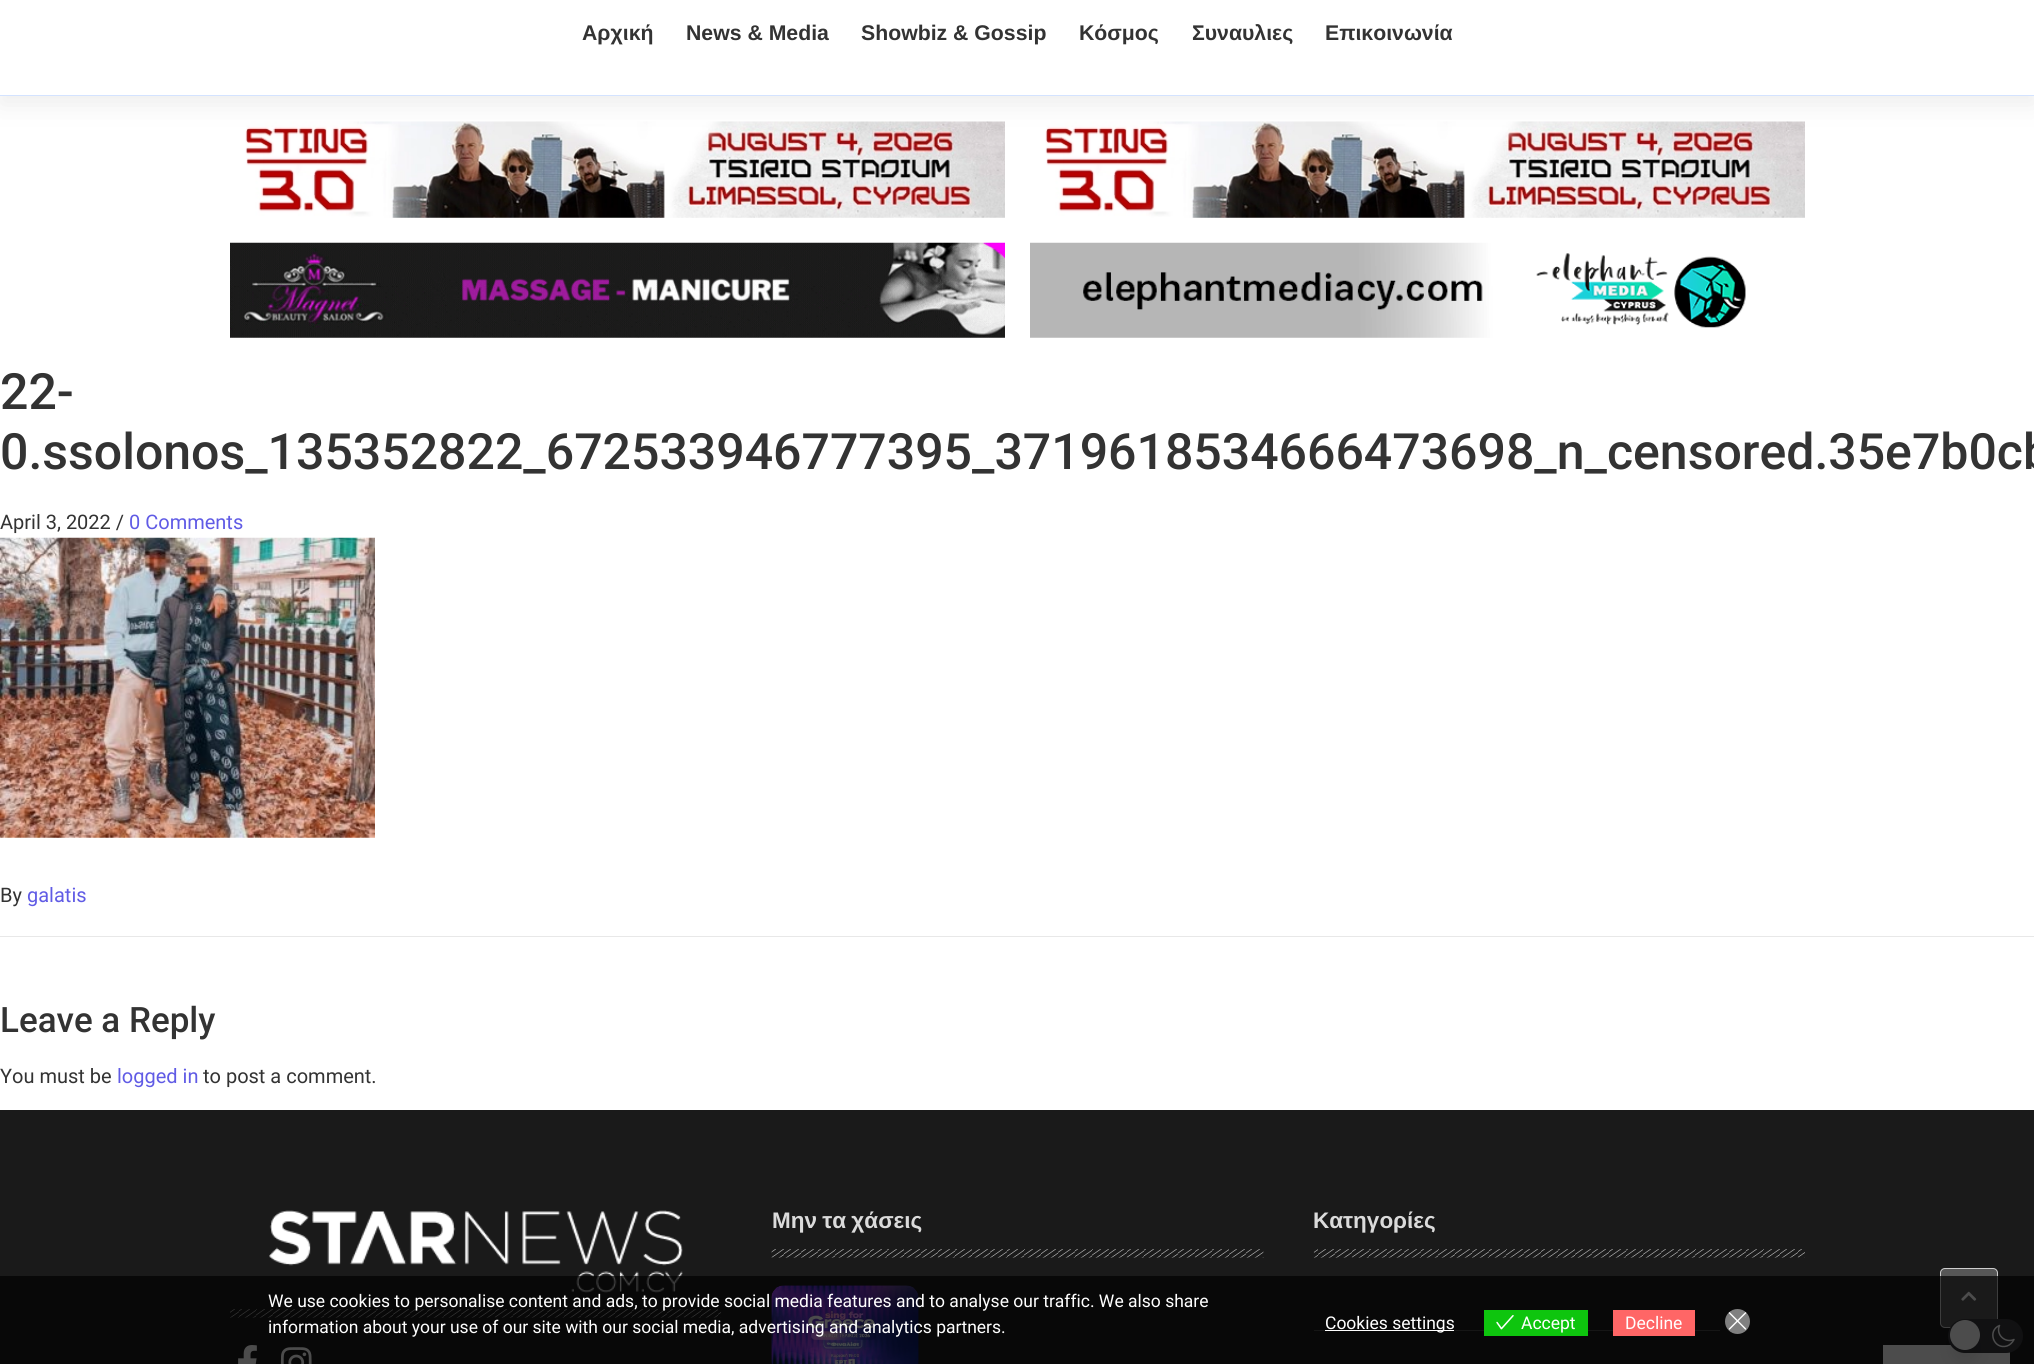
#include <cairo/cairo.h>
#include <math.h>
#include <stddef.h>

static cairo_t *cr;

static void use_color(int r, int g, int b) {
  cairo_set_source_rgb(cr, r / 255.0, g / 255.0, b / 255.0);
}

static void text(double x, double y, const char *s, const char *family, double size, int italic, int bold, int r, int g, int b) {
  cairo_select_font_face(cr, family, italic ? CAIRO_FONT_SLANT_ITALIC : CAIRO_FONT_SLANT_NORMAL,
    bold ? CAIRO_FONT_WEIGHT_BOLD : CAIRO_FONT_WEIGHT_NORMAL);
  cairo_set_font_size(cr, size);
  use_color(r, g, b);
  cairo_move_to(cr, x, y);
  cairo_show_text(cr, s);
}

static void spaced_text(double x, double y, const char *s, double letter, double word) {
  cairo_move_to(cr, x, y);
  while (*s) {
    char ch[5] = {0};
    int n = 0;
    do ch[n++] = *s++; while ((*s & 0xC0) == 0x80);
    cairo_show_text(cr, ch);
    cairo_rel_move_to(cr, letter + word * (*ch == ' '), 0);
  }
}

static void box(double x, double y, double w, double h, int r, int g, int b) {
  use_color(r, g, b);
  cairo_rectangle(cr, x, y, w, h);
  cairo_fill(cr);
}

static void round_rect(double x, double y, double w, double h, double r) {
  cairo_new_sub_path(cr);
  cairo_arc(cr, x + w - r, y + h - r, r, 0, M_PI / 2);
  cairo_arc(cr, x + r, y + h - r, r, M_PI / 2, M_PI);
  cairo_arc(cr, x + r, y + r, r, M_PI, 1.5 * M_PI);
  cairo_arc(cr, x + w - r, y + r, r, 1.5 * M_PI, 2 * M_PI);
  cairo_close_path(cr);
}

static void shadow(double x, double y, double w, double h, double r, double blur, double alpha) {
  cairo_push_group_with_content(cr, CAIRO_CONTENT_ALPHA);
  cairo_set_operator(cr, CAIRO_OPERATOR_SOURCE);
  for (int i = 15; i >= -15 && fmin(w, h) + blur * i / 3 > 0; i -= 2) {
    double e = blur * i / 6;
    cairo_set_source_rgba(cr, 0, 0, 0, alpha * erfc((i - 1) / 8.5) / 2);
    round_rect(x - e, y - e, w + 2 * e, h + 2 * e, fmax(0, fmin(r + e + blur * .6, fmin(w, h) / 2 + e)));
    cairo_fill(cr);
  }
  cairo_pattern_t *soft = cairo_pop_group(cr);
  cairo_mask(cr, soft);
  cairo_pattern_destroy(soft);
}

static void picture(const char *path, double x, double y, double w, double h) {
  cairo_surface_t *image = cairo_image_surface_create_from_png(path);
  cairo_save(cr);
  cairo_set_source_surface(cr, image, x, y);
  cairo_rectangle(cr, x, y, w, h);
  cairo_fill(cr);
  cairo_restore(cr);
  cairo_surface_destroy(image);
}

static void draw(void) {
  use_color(255, 255, 255);
  cairo_paint(cr);
  picture("img_01.png", 245, 121, 760, 97);
  picture("img_02.png", 1045, 121, 760, 97);
  cairo_save(cr);
  cairo_rectangle(cr, 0, 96, 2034, 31);
  cairo_clip(cr);
  use_color(221, 221, 221);
  shadow(0, -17, 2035, 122, 0, 12.5, 0.5);
  cairo_restore(cr);
  box(0, 95, 2034, 1, 212, 227, 255);
  picture("img_03.png", 230, 242, 775, 96);
  picture("img_04.png", 1030, 242, 716, 96);
  picture("img_05.png", 0, 537, 375, 301);
  box(0, 936, 2034, 1, 232, 232, 232);
  box(0, 1110, 2034, 254, 26, 26, 26);
  picture("img_06.png", 269, 1210, 414, 83);
  picture("img_07.png", 230, 1309, 492, 9);
  picture("img_08.png", 238, 1345, 19, 19);
  picture("img_09.png", 280, 1347, 32, 17);
  picture("img_10.png", 771, 1249, 493, 9);
  picture("img_11.png", 771, 1285, 148, 79);
  picture("img_12.png", 1313, 1249, 492, 9);
  box(1314, 1330, 170, 1, 73, 73, 73);
  box(1588, 1330, 132, 1, 73, 73, 73);
  use_color(87, 87, 87);
  round_rect(1940.5, 1268.5, 57, 59, 4.5);
  cairo_fill_preserve(cr);
  use_color(206, 206, 206);
  cairo_set_line_width(cr, 1);
  cairo_stroke(cr);
  picture("img_13.png", 1961, 1291, 16, 10);
  box(1883, 1345, 127, 19, 255, 255, 255);
  use_color(57, 57, 61);
  round_rect(1948, 1319, 75, 34, 17);
  cairo_fill(cr);
  cairo_new_path(cr);
  cairo_move_to(cr, 2014, 1339.5);
  cairo_curve_to(cr, 2005, 1343.5, 1995.5, 1334.5, 1999.5, 1325.5);
  cairo_curve_to(cr, 1987, 1330.5, 1993.5, 1350, 2007, 1346);
  cairo_curve_to(cr, 2010, 1345, 2012.5, 1342.5, 2014, 1339.5);
  cairo_close_path(cr);
  use_color(255, 255, 255);
  cairo_set_line_width(cr, 1.5);
  cairo_set_line_cap(cr, CAIRO_LINE_CAP_ROUND);
  cairo_set_line_join(cr, CAIRO_LINE_JOIN_ROUND);
  cairo_stroke(cr);
  use_color(0, 0, 0);
  shadow(1954, 1336, 22, 23, 11, 9.5, 0.1);
  use_color(255, 255, 255);
  cairo_arc(cr, 1965, 1335, 15, 0, 2 * M_PI);
  cairo_fill(cr);
  cairo_set_source_rgba(cr, 0, 0, 0, 0.7);
  cairo_rectangle(cr, 0, 1276, 2034, 88);
  cairo_fill(cr);
  box(1325, 1330, 129, 1, 255, 255, 255);
  box(1484, 1310, 104, 26, 14, 197, 14);
  picture("img_14.png", 1496, 1315, 18, 15);
  box(1613, 1310, 82, 26, 255, 102, 102);
  use_color(128, 128, 128);
  cairo_arc(cr, 1737.5, 1321.5, 12.5, 0, 2 * M_PI);
  cairo_fill(cr);
  picture("img_15.png", 1728, 1312, 19, 18);
  text(582, 40, "Αρχική", "Liberation Sans", 21.25, 0, 1, 51, 51, 51);
  text(686, 40, "News & Media", "Liberation Sans", 21.25, 0, 1, 51, 51, 51);
  text(861, 40, "Showbiz & Gossip", "Liberation Sans", 21.25, 0, 1, 51, 51, 51);
  text(1079, 40, "Κόσμος", "Liberation Sans", 21.25, 0, 1, 51, 51, 51);
  text(1192, 40, "Συναυλιες", "Liberation Sans", 21.25, 0, 1, 51, 51, 51);
  text(1325, 40, "Eπικοινωνία", "Liberation Sans", 21.25, 0, 1, 51, 51, 51);
  text(0, 409, "22-", "Roboto Medium", 50, 0, 0, 51, 51, 51);
  text(0, 469, "0.ssolonos_135352822_672533946777395_3719618534666473698_n_censored.35e7b0cb", "Roboto Medium", 50, 0, 0, 51, 51, 51);
  text(0, 529, "April 3, 2022 /", "Roboto", 20, 0, 0, 51, 51, 51);
  text(129, 529, "0 Comments", "Roboto", 20, 0, 0, 96, 91, 229);
  text(0, 902, "By", "Roboto", 20, 0, 0, 51, 51, 51);
  text(27, 902, "galatis", "Roboto", 20, 0, 0, 96, 91, 229);
  text(0, 1032, "Leave a Reply", "Roboto Medium", 35, 0, 0, 51, 51, 51);
  text(0, 1083, "You must be", "Roboto", 20, 0, 0, 51, 51, 51);
  text(117, 1083, "logged in", "Roboto", 20, 0, 0, 96, 91, 229);
  text(203, 1083, "to post a comment.", "Roboto", 20, 0, 0, 51, 51, 51);
  cairo_select_font_face(cr, "Liberation Sans", CAIRO_FONT_SLANT_NORMAL, CAIRO_FONT_WEIGHT_BOLD);
  cairo_set_font_size(cr, 22.5);
  use_color(219, 219, 219);
  spaced_text(772, 1228, "Μην τα χάσεις", 0, -1);
  text(1313, 1228, "Κατηγορίες", "Liberation Sans", 22.5, 0, 1, 219, 219, 219);
  text(268, 1307, "We use cookies to personalise content and ads, to provide social media features and to analyse our traffic. We also share", "Roboto", 17.5, 0, 0, 255, 255, 255);
  text(268, 1333, "information about your use of our site with our social media, advertising and analytics partners.", "Roboto", 17.5, 0, 0, 255, 255, 255);
  text(1325, 1329, "Cookies settings", "Roboto", 17.5, 0, 0, 255, 255, 255);
  text(1521, 1329, "Accept", "Roboto", 17.5, 0, 0, 255, 255, 255);
  text(1625, 1329, "Decline", "Roboto", 17.5, 0, 0, 255, 255, 255);
}

int main(void) {
  cairo_surface_t *surface = cairo_image_surface_create(CAIRO_FORMAT_RGB24, 2034, 1364);
  cr = cairo_create(surface);
  cairo_font_options_t *options = cairo_font_options_create();
  cairo_font_options_set_hint_metrics(options, CAIRO_HINT_METRICS_OFF);
  cairo_font_options_set_hint_style(options, CAIRO_HINT_STYLE_NONE);
  cairo_set_font_options(cr, options);
  cairo_set_miter_limit(cr, 4);
  draw();
  cairo_surface_write_to_png(surface, "out.png");
  cairo_font_options_destroy(options);
  cairo_destroy(cr);
  cairo_surface_destroy(surface);
  return 0;
}
